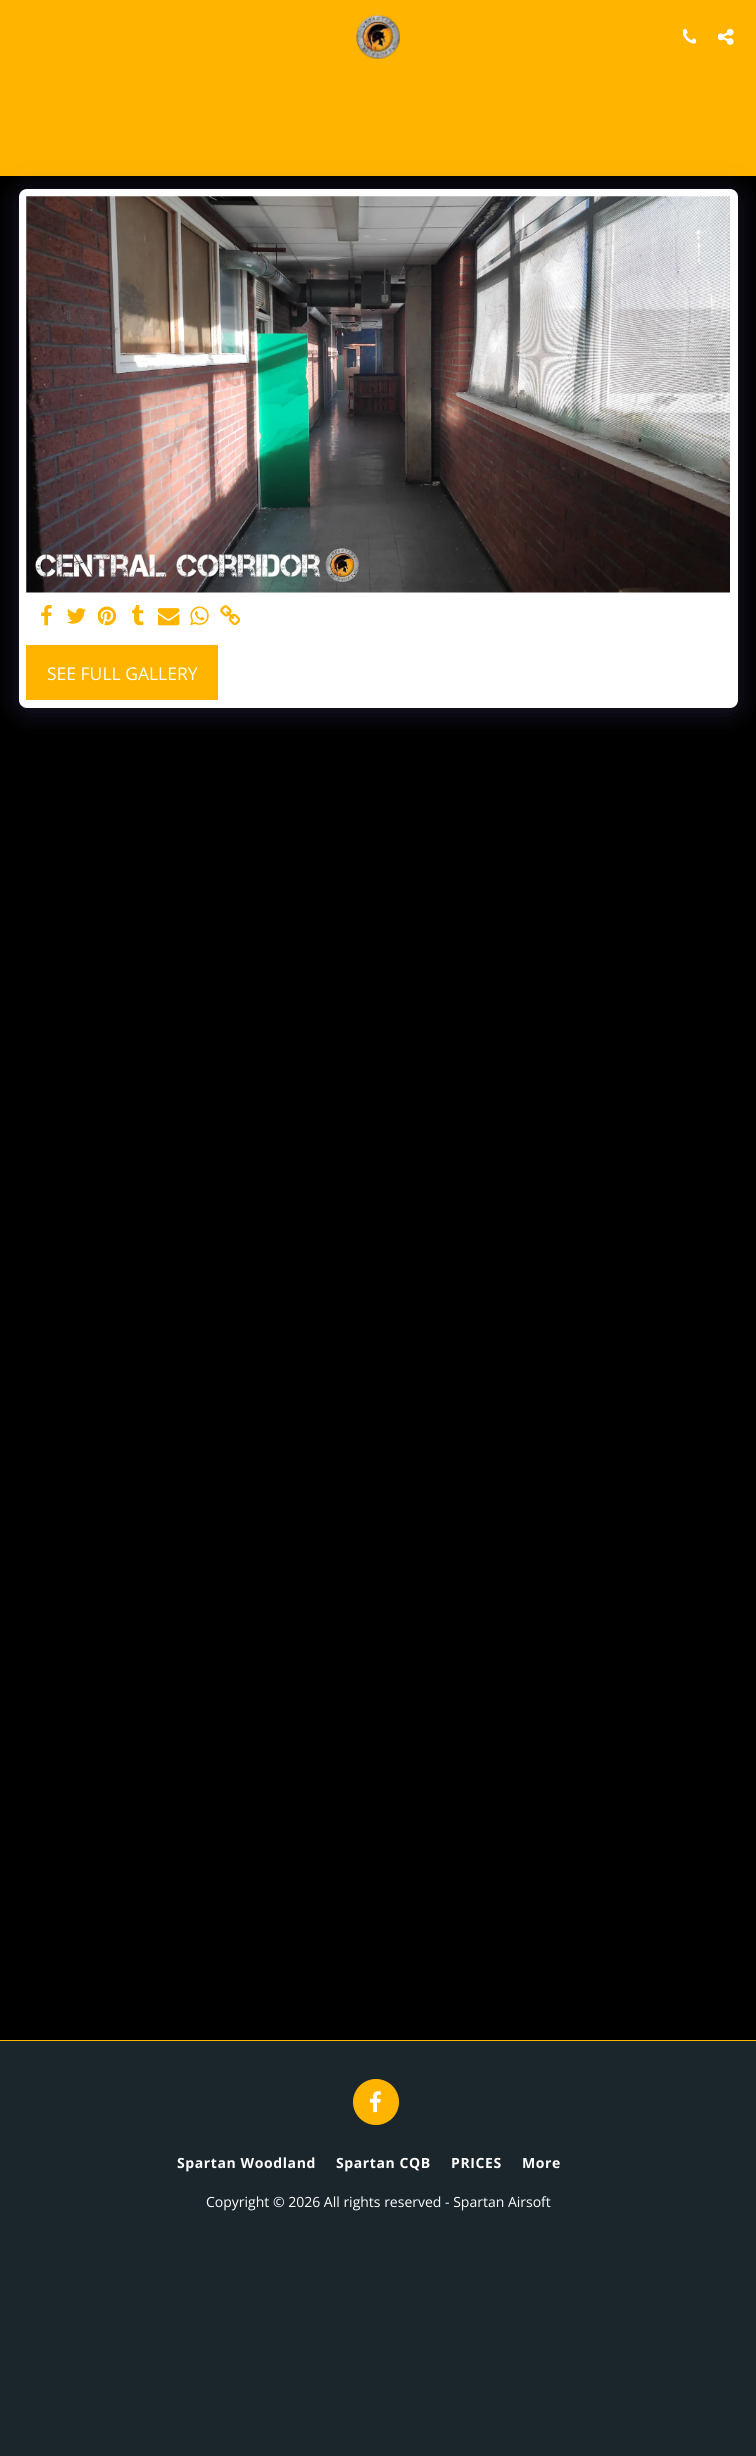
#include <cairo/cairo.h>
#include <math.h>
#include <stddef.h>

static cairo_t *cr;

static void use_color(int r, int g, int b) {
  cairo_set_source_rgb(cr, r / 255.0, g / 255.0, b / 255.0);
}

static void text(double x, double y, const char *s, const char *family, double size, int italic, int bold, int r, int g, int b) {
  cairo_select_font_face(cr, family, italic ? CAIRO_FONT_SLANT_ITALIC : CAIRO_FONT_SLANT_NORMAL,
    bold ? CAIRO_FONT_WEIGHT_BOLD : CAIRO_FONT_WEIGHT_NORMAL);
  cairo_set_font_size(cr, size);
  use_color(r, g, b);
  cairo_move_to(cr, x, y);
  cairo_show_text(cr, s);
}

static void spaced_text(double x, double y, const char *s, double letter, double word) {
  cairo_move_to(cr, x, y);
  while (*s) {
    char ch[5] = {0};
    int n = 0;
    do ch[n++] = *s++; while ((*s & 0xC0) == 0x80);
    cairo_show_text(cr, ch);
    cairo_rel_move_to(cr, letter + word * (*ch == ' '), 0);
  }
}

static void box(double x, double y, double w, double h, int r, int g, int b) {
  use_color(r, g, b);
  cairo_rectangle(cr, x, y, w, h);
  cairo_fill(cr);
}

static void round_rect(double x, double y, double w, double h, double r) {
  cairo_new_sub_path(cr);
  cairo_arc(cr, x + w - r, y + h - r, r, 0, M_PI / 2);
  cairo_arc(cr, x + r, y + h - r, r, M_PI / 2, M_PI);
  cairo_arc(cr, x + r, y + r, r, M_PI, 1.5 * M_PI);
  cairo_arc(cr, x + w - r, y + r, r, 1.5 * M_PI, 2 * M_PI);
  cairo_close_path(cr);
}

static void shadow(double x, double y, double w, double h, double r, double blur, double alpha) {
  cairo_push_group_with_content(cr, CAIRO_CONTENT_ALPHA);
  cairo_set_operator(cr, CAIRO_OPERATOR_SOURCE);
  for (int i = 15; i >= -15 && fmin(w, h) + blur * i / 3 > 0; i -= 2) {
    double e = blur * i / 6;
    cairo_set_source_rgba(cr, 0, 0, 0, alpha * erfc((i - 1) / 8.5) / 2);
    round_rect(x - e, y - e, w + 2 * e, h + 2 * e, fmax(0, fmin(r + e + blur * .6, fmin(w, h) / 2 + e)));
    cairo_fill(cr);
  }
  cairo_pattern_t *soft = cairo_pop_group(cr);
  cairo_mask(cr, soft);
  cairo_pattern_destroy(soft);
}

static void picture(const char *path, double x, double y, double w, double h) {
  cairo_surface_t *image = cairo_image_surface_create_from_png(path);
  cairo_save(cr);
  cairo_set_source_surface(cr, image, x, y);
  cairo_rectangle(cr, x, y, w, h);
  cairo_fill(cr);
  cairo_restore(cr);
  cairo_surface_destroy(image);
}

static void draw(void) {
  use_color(27, 38, 44);
  cairo_paint(cr);
  box(0, 0, 756, 176, 255, 180, 0);
  picture("img_01.png", 356, 15, 44, 44);
  picture("img_02.png", 683, 28, 13, 16);
  picture("img_03.png", 718, 28, 16, 17);
  box(0, 176, 756, 1864, 0, 0, 0);
  use_color(77, 63, 122);
  shadow(19, 193, 719, 518, 8, 12.5, 0.4);
  use_color(255, 255, 255);
  round_rect(19, 189, 719, 519, 8);
  cairo_fill(cr);
  picture("img_04.png", 26, 196, 704, 397);
  picture("img_05.png", 41, 605, 11, 21);
  picture("img_06.png", 67, 608, 19, 16);
  picture("img_07.png", 98, 606, 18, 20);
  picture("img_08.png", 132, 605, 12, 21);
  picture("img_09.png", 158, 608, 22, 18);
  picture("img_10.png", 190, 606, 19, 20);
  picture("img_11.png", 220, 605, 20, 21);
  box(26, 645, 192, 55, 255, 180, 0);
  box(0, 2040, 756, 1, 255, 180, 0);
  cairo_arc(cr, 376, 2102, 22.5, 0, 2 * M_PI);
  cairo_fill_preserve(cr);
  cairo_set_line_width(cr, 1);
  cairo_stroke(cr);
  picture("img_12.png", 369, 2091, 12, 22);
  text(47, 680, "SEE FULL GALLERY", "Open Sans", 17.5, 0, 0, 255, 255, 255);
  cairo_select_font_face(cr, "Open Sans", CAIRO_FONT_SLANT_NORMAL, CAIRO_FONT_WEIGHT_BOLD);
  cairo_set_font_size(cr, 14);
  spaced_text(177, 2168, "Spartan Woodland", 0.6, 0);
  spaced_text(336, 2168, "Spartan CQB", 0.6, 0);
  spaced_text(451, 2168, "PRICES", 0.6, 0);
  spaced_text(522, 2168, "More", 0.6, 0);
  text(206, 2207, "Copyright © 2026 All rights reserved - Spartan Airsoft", "Open Sans", 14, 0, 0, 255, 255, 255);
}

int main(void) {
  cairo_surface_t *surface = cairo_image_surface_create(CAIRO_FORMAT_RGB24, 756, 2456);
  cr = cairo_create(surface);
  cairo_font_options_t *options = cairo_font_options_create();
  cairo_font_options_set_hint_metrics(options, CAIRO_HINT_METRICS_OFF);
  cairo_font_options_set_hint_style(options, CAIRO_HINT_STYLE_NONE);
  cairo_set_font_options(cr, options);
  cairo_set_miter_limit(cr, 4);
  draw();
  cairo_surface_write_to_png(surface, "out.png");
  cairo_font_options_destroy(options);
  cairo_destroy(cr);
  cairo_surface_destroy(surface);
  return 0;
}
